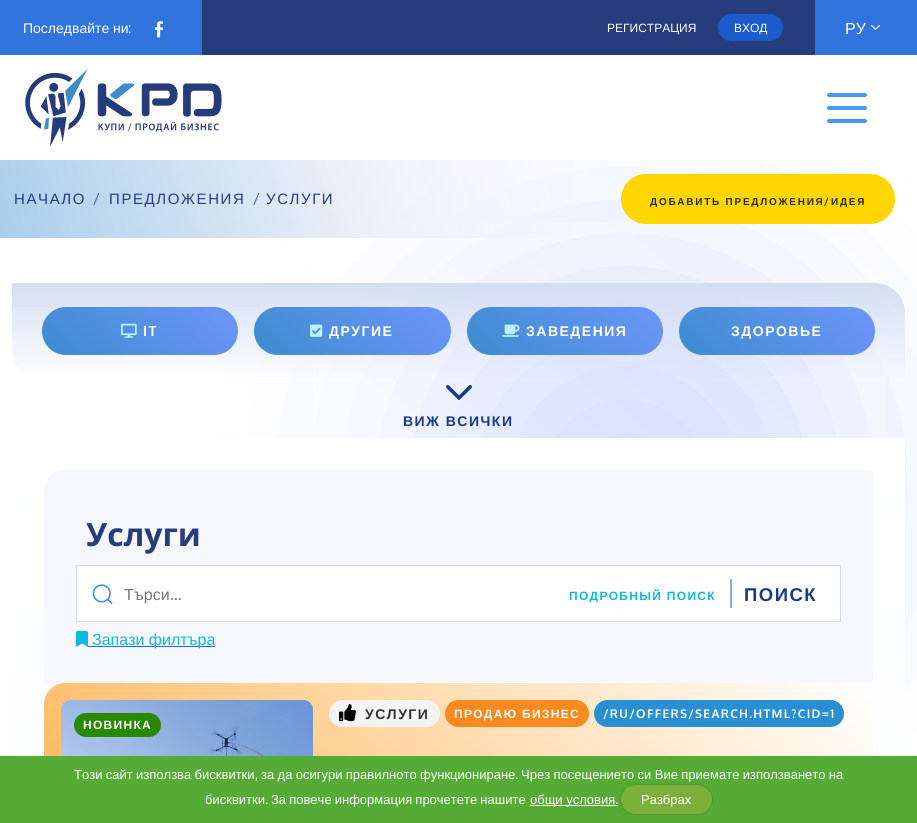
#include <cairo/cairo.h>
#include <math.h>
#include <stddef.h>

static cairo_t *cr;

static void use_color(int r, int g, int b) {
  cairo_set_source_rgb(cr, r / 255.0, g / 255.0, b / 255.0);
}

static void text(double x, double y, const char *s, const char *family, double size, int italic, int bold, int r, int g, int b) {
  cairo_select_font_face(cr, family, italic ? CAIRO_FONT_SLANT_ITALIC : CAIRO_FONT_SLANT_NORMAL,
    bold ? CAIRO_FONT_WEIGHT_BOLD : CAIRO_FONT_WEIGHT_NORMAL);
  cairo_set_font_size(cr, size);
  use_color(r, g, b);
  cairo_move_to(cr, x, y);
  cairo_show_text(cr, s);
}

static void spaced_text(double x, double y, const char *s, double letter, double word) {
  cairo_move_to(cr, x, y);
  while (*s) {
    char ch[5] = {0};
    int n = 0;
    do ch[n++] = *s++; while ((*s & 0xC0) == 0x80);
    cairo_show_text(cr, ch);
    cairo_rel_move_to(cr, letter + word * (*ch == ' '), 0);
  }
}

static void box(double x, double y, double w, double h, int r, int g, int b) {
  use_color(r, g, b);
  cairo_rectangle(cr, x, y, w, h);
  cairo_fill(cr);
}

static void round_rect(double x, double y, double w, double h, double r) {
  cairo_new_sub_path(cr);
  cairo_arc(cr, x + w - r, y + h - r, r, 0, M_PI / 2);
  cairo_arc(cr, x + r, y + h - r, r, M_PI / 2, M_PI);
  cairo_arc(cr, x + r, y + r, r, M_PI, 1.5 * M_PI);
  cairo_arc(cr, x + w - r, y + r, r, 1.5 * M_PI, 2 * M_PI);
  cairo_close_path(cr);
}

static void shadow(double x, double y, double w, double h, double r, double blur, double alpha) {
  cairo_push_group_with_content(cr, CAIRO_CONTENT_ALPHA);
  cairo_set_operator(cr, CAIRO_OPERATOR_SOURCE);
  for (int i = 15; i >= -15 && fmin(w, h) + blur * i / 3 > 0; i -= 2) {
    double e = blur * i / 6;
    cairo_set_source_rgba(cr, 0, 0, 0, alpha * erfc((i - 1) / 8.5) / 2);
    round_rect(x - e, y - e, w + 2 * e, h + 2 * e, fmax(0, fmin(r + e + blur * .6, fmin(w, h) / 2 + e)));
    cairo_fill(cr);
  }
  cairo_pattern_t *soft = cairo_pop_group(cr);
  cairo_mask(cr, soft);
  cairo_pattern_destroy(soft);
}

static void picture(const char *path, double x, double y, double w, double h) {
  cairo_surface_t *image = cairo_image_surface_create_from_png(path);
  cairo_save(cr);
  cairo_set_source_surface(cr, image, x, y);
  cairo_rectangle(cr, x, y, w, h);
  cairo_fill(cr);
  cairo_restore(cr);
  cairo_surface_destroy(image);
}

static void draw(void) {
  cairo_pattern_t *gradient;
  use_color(255, 255, 255);
  cairo_paint(cr);
  use_color(106, 137, 247);
  shadow(425, 283, 400, 400, 200, 100, 0.38);
  box(0, 0, 917, 55, 49, 116, 221);
  box(202, 0, 613, 55, 39, 60, 125);
  picture("img_01.png", 155, 21, 8, 17);
  use_color(27, 91, 203);
  round_rect(718, 14, 65, 27, 13.5);
  cairo_fill(cr);
  picture("img_02.png", 871, 25, 9, 5);
  gradient = cairo_pattern_create_linear(-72, 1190, 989, 128);
  cairo_pattern_add_color_stop_rgba(gradient, 0, 1, 1, 1, 1);
  cairo_pattern_add_color_stop_rgba(gradient, 1, 1, 1, 1, 0);
  cairo_set_source(cr, gradient);
  cairo_pattern_destroy(gradient);
  cairo_rectangle(cr, 313, 222, 573, 534);
  cairo_fill(cr);
  use_color(255, 255, 255);
  cairo_new_path(cr);
  cairo_move_to(cr, 24, 55);
  cairo_line_to(cr, 905, 55);
  cairo_line_to(cr, 905, 120);
  cairo_curve_to(cr, 905, 142, 887, 160, 865, 160);
  cairo_line_to(cr, 24, 160);
  cairo_close_path(cr);
  cairo_fill(cr);
  picture("img_03.png", 25, 69, 197, 78);
  picture("img_04.png", 827, 93, 40, 30);
  gradient = cairo_pattern_create_linear(46, 357, 871, 41);
  cairo_pattern_add_color_stop_rgba(gradient, 0, 0.663, 0.808, 0.925, 1);
  cairo_pattern_add_color_stop_rgba(gradient, 0.39, 0.925, 0.937, 0.969, 1);
  cairo_pattern_add_color_stop_rgba(gradient, 0.71, 0.973, 0.965, 0.988, 0.01);
  cairo_set_source(cr, gradient);
  cairo_pattern_destroy(gradient);
  cairo_rectangle(cr, 0, 160, 574, 78);
  cairo_fill(cr);
  use_color(255, 214, 0);
  round_rect(621, 174, 274, 50, 25);
  cairo_fill(cr);
  gradient = cairo_pattern_create_linear(459, 283, 459, 379);
  cairo_pattern_add_color_stop_rgba(gradient, 0, 0.831, 0.871, 0.949, 1);
  cairo_pattern_add_color_stop_rgba(gradient, 1, 0.831, 0.871, 0.949, 0);
  cairo_set_source(cr, gradient);
  cairo_pattern_destroy(gradient);
  cairo_new_path(cr);
  cairo_move_to(cr, 12, 283);
  cairo_line_to(cr, 875, 283);
  cairo_curve_to(cr, 891.5, 283, 905, 296.5, 905, 313);
  cairo_line_to(cr, 905, 379);
  cairo_line_to(cr, 42, 379);
  cairo_curve_to(cr, 25.5, 379, 12, 365.5, 12, 349);
  cairo_close_path(cr);
  cairo_fill(cr);
  gradient = cairo_pattern_create_linear(77, 392, 203, 270);
  cairo_pattern_add_color_stop_rgba(gradient, 0, 0.239, 0.549, 0.808, 1);
  cairo_pattern_add_color_stop_rgba(gradient, 1, 0.431, 0.584, 0.984, 1);
  cairo_set_source(cr, gradient);
  cairo_pattern_destroy(gradient);
  round_rect(42, 307, 196, 48, 24);
  cairo_fill(cr);
  picture("img_05.png", 121, 323, 16, 15);
  gradient = cairo_pattern_create_linear(290, 392, 415, 270);
  cairo_pattern_add_color_stop_rgba(gradient, 0, 0.239, 0.549, 0.808, 1);
  cairo_pattern_add_color_stop_rgba(gradient, 1, 0.431, 0.584, 0.984, 1);
  cairo_set_source(cr, gradient);
  cairo_pattern_destroy(gradient);
  round_rect(254, 307, 197, 48, 24);
  cairo_fill(cr);
  picture("img_06.png", 310, 324, 13, 13);
  gradient = cairo_pattern_create_linear(502, 392, 628, 270);
  cairo_pattern_add_color_stop_rgba(gradient, 0, 0.239, 0.549, 0.808, 1);
  cairo_pattern_add_color_stop_rgba(gradient, 1, 0.431, 0.584, 0.984, 1);
  cairo_set_source(cr, gradient);
  cairo_pattern_destroy(gradient);
  round_rect(467, 307, 196, 48, 24);
  cairo_fill(cr);
  picture("img_07.png", 502, 324, 18, 13);
  gradient = cairo_pattern_create_linear(714, 392, 840, 270);
  cairo_pattern_add_color_stop_rgba(gradient, 0, 0.239, 0.549, 0.808, 1);
  cairo_pattern_add_color_stop_rgba(gradient, 1, 0.431, 0.584, 0.984, 1);
  cairo_set_source(cr, gradient);
  cairo_pattern_destroy(gradient);
  round_rect(679, 307, 196, 48, 24);
  cairo_fill(cr);
  picture("img_08.png", 446, 385, 26, 15);
  gradient = cairo_pattern_create_linear(458, 438, 459, 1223);
  cairo_pattern_add_color_stop_rgba(gradient, 0, 1, 1, 1, 1);
  cairo_pattern_add_color_stop_rgba(gradient, 1, 0.973, 0.98, 0.996, 1);
  cairo_set_source(cr, gradient);
  cairo_pattern_destroy(gradient);
  cairo_new_path(cr);
  cairo_move_to(cr, 52, 438);
  cairo_line_to(cr, 905, 438);
  cairo_line_to(cr, 905, 823);
  cairo_curve_to(cr, 905, 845, 887, 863, 865, 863);
  cairo_line_to(cr, 12, 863);
  cairo_line_to(cr, 12, 478);
  cairo_curve_to(cr, 12, 456, 30, 438, 52, 438);
  cairo_close_path(cr);
  cairo_fill(cr);
  use_color(246, 248, 253);
  cairo_new_path(cr);
  cairo_move_to(cr, 64, 470);
  cairo_line_to(cr, 873, 470);
  cairo_line_to(cr, 873, 683);
  cairo_line_to(cr, 44, 683);
  cairo_line_to(cr, 44, 490);
  cairo_curve_to(cr, 44, 479, 53, 470, 64, 470);
  cairo_close_path(cr);
  cairo_fill(cr);
  use_color(255, 255, 255);
  cairo_rectangle(cr, 76.5, 565.5, 764, 56);
  cairo_fill_preserve(cr);
  use_color(217, 217, 217);
  cairo_set_line_width(cr, 1);
  cairo_stroke(cr);
  picture("img_09.png", 92, 584, 21, 21);
  box(730, 579, 2, 29, 144, 172, 219);
  picture("img_10.png", 76, 631, 12, 16);
  box(88, 646, 127, 1, 13, 110, 253);
  use_color(255, 255, 255);
  round_rect(44, 683, 829, 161, 21);
  cairo_fill(cr);
  cairo_save(cr);
  round_rect(44, 683, 829, 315, 21);
  cairo_clip(cr);
  gradient = cairo_pattern_create_linear(173, 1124, 744, 554);
  cairo_pattern_add_color_stop_rgba(gradient, 0, 1, 0.667, 0.235, 1);
  cairo_pattern_add_color_stop_rgba(gradient, 1, 1, 1, 1, 1);
  cairo_set_source(cr, gradient);
  cairo_pattern_destroy(gradient);
  cairo_new_path(cr);
  cairo_move_to(cr, 65, 683);
  cairo_line_to(cr, 852, 683);
  cairo_curve_to(cr, 863.5, 683, 873, 692.5, 873, 704);
  cairo_line_to(cr, 873, 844);
  cairo_line_to(cr, 44, 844);
  cairo_line_to(cr, 44, 704);
  cairo_curve_to(cr, 44, 692.5, 53.5, 683, 65, 683);
  cairo_close_path(cr);
  cairo_fill(cr);
  cairo_restore(cr);
  use_color(243, 243, 243);
  round_rect(329, 700, 111, 27, 13.5);
  cairo_fill(cr);
  picture("img_11.png", 339, 704, 17, 18);
  use_color(250, 137, 32);
  round_rect(445, 700, 144, 27, 13.5);
  cairo_fill(cr);
  use_color(40, 143, 211);
  round_rect(594, 700, 250, 27, 13.5);
  cairo_fill(cr);
  picture("img_12.png", 61, 700, 252, 56);
  use_color(41, 135, 0);
  round_rect(74, 713, 87, 24, 12);
  cairo_fill(cr);
  box(0, 756, 917, 67, 86, 171, 54);
  box(530, 805, 88, 1, 255, 255, 255);
  use_color(0, 0, 0);
  shadow(621, 785, 91, 29, 14.5, 1, 0.25);
  use_color(125, 175, 59);
  round_rect(621, 785, 91, 29, 14.5);
  cairo_fill(cr);
  text(23, 33, "Последвайте ни", "Liberation Sans", 14, 0, 0, 255, 255, 255);
  text(128, 33, ":", "Oxygen", 14, 0, 0, 255, 255, 255);
  text(607, 32, "РЕГИСТРАЦИЯ", "Liberation Sans", 12, 0, 0, 255, 255, 255);
  text(734, 32, "ВХОД", "Liberation Sans", 12, 0, 0, 255, 255, 255);
  text(845, 34, "РУ", "Liberation Sans", 16, 0, 0, 255, 255, 255);
  cairo_set_font_size(cr, 15);
  use_color(39, 60, 125);
  spaced_text(14, 204, "НАЧАЛО", 1.6, 0);
  cairo_select_font_face(cr, "Oxygen Light", CAIRO_FONT_SLANT_NORMAL, CAIRO_FONT_WEIGHT_NORMAL);
  spaced_text(93, 204, "/", 1.6, 0);
  cairo_select_font_face(cr, "Liberation Sans", CAIRO_FONT_SLANT_NORMAL, CAIRO_FONT_WEIGHT_NORMAL);
  spaced_text(109, 204, "ПРЕДЛОЖЕНИЯ", 1.6, 0);
  cairo_select_font_face(cr, "Oxygen Light", CAIRO_FONT_SLANT_NORMAL, CAIRO_FONT_WEIGHT_NORMAL);
  spaced_text(253, 204, "/", 1.6, 0);
  cairo_select_font_face(cr, "Liberation Sans", CAIRO_FONT_SLANT_NORMAL, CAIRO_FONT_WEIGHT_NORMAL);
  spaced_text(266, 204, "УСЛУГИ", 1.6, 0);
  cairo_select_font_face(cr, "Liberation Sans", CAIRO_FONT_SLANT_NORMAL, CAIRO_FONT_WEIGHT_BOLD);
  cairo_set_font_size(cr, 10);
  use_color(39, 44, 51);
  spaced_text(650, 205, "ДОБАВИТЬ ПРЕДЛОЖЕНИЯ", 1.75, 0);
  cairo_select_font_face(cr, "Oxygen", CAIRO_FONT_SLANT_NORMAL, CAIRO_FONT_WEIGHT_BOLD);
  spaced_text(824, 205, "/", 1.75, 0);
  cairo_select_font_face(cr, "Liberation Sans", CAIRO_FONT_SLANT_NORMAL, CAIRO_FONT_WEIGHT_BOLD);
  spaced_text(831, 205, "ИДЕЯ", 1.75, 0);
  cairo_select_font_face(cr, "Oxygen", CAIRO_FONT_SLANT_NORMAL, CAIRO_FONT_WEIGHT_BOLD);
  cairo_set_font_size(cr, 14);
  use_color(255, 255, 255);
  spaced_text(143, 336, "IT", 1.5, 0);
  cairo_select_font_face(cr, "Liberation Sans", CAIRO_FONT_SLANT_NORMAL, CAIRO_FONT_WEIGHT_BOLD);
  spaced_text(329, 336, "ДРУГИЕ", 1.5, 0);
  spaced_text(526, 336, "ЗАВЕДЕНИЯ", 1.5, 0);
  spaced_text(731, 336, "ЗДОРОВЬЕ", 1.5, 0);
  use_color(24, 58, 135);
  spaced_text(403, 426, "ВИЖ ВСИЧКИ", 1.5, 0);
  text(86, 546, "Услуги", "Open Sans", 32, 0, 1, 39, 60, 125);
  text(124, 600, "Търси", "Liberation Sans", 16, 0, 0, 117, 117, 117);
  text(170, 600, "...", "Oxygen", 16, 0, 0, 117, 117, 117);
  cairo_select_font_face(cr, "Liberation Sans", CAIRO_FONT_SLANT_NORMAL, CAIRO_FONT_WEIGHT_BOLD);
  cairo_set_font_size(cr, 12);
  use_color(11, 186, 222);
  spaced_text(569, 600, "ПОДРОБНЫЙ ПОИСК", 1.3, 0);
  cairo_set_font_size(cr, 18.5);
  use_color(24, 58, 135);
  spaced_text(744, 601, "ПОИСК", 1.5, 0);
  text(92, 645, "Запази филтъра", "Liberation Sans", 16, 0, 0, 11, 186, 222);
  cairo_select_font_face(cr, "Liberation Sans", CAIRO_FONT_SLANT_NORMAL, CAIRO_FONT_WEIGHT_BOLD);
  cairo_set_font_size(cr, 14);
  use_color(50, 50, 50);
  spaced_text(365, 719, "УСЛУГИ", 1.5, 0);
  cairo_set_font_size(cr, 12);
  use_color(255, 255, 255);
  spaced_text(454, 718, "ПРОДАЮ БИЗНЕС", 1.3, 0);
  cairo_select_font_face(cr, "Oxygen", CAIRO_FONT_SLANT_NORMAL, CAIRO_FONT_WEIGHT_BOLD);
  spaced_text(603, 718, "/RU/OFFERS/SEARCH.HTML?CID=1", 1.3, 0);
  cairo_select_font_face(cr, "Liberation Sans", CAIRO_FONT_SLANT_NORMAL, CAIRO_FONT_WEIGHT_BOLD);
  spaced_text(83, 729, "НОВИНКА", 1.3, 0);
  cairo_select_font_face(cr, "Liberation Sans", CAIRO_FONT_SLANT_NORMAL, CAIRO_FONT_WEIGHT_NORMAL);
  cairo_set_font_size(cr, 13);
  spaced_text(74, 779, "Този сайт използва бисквитки", 0, -0.25);
  text(255, 779, ",", "Oxygen", 13, 0, 0, 255, 255, 255);
  cairo_select_font_face(cr, "Liberation Sans", CAIRO_FONT_SLANT_NORMAL, CAIRO_FONT_WEIGHT_NORMAL);
  spaced_text(261, 779, "за да осигури правилното функциониране", 0, -0.25);
  text(515, 779, ".", "Oxygen", 13, 0, 0, 255, 255, 255);
  cairo_select_font_face(cr, "Liberation Sans", CAIRO_FONT_SLANT_NORMAL, CAIRO_FONT_WEIGHT_NORMAL);
  spaced_text(521, 779, "Чрез посещението си Вие приемате използването на", 0, -0.25);
  text(205, 804, "бисквитки", "Liberation Sans", 13, 0, 0, 255, 255, 255);
  text(265, 804, ".", "Oxygen", 13, 0, 0, 255, 255, 255);
  cairo_select_font_face(cr, "Liberation Sans", CAIRO_FONT_SLANT_NORMAL, CAIRO_FONT_WEIGHT_NORMAL);
  spaced_text(271, 804, "За повече информация прочетете нашите", 0, -0.5);
  text(530, 804, "общи условия", "Liberation Sans", 13, 0, 0, 255, 255, 255);
  text(615, 804, ".", "Oxygen", 13, 0, 0, 255, 255, 255);
  text(641, 804, "Разбрах", "Liberation Sans", 13, 0, 0, 255, 255, 255);
}

int main(void) {
  cairo_surface_t *surface = cairo_image_surface_create(CAIRO_FORMAT_RGB24, 917, 823);
  cr = cairo_create(surface);
  cairo_font_options_t *options = cairo_font_options_create();
  cairo_font_options_set_hint_metrics(options, CAIRO_HINT_METRICS_OFF);
  cairo_font_options_set_hint_style(options, CAIRO_HINT_STYLE_NONE);
  cairo_set_font_options(cr, options);
  cairo_set_miter_limit(cr, 4);
  draw();
  cairo_surface_write_to_png(surface, "out.png");
  cairo_font_options_destroy(options);
  cairo_destroy(cr);
  cairo_surface_destroy(surface);
  return 0;
}
